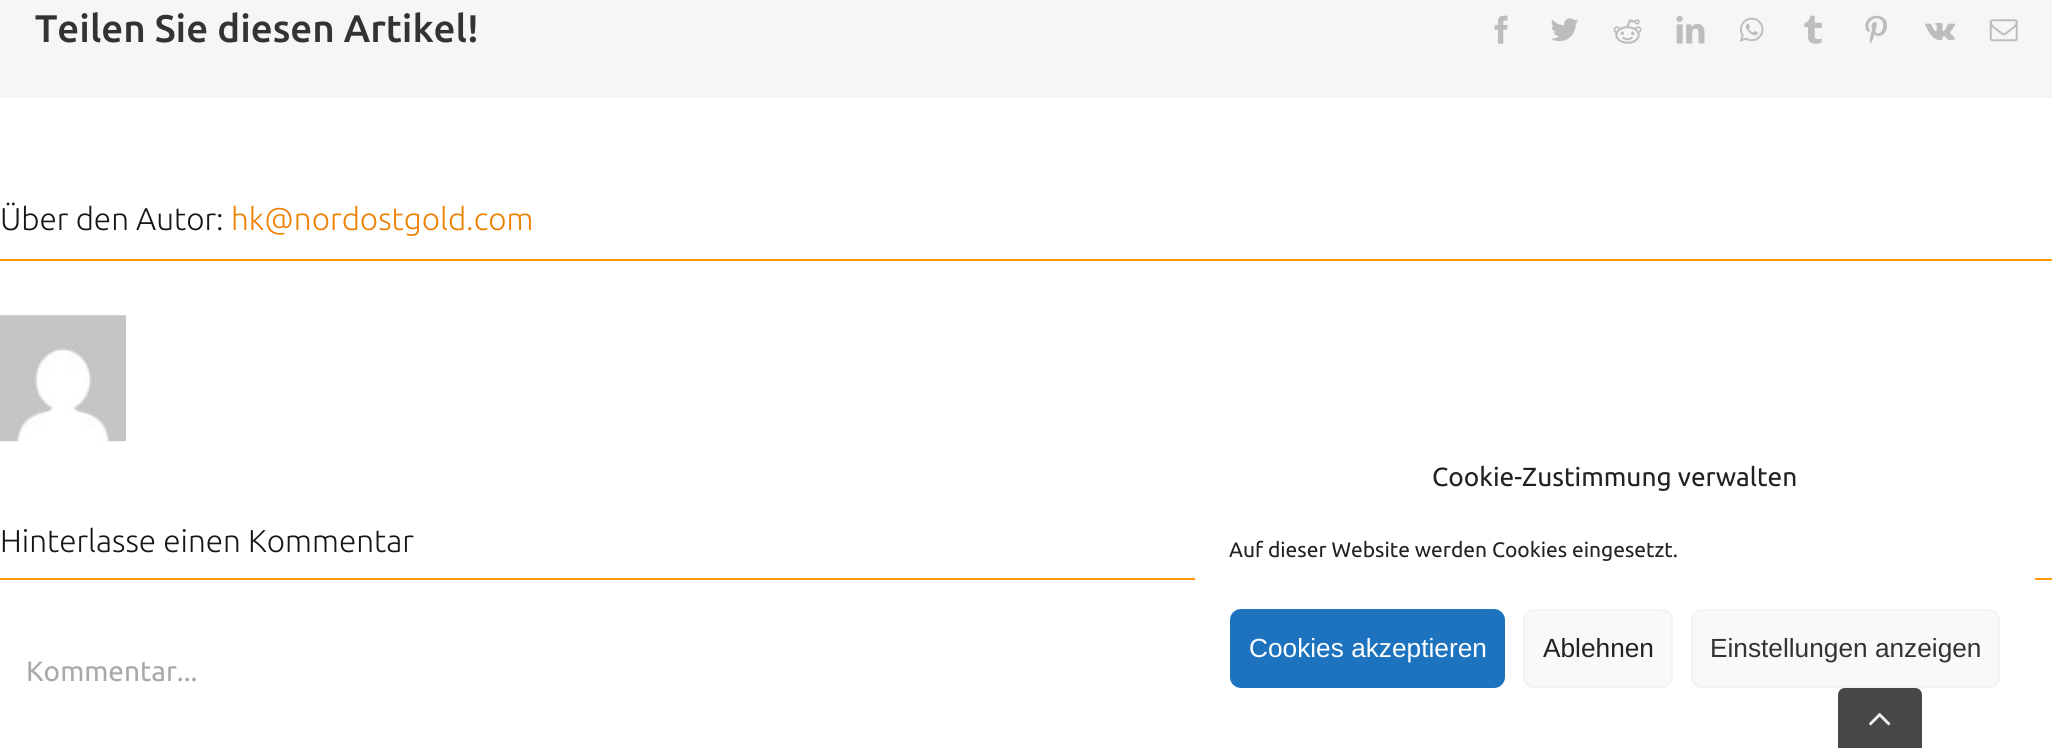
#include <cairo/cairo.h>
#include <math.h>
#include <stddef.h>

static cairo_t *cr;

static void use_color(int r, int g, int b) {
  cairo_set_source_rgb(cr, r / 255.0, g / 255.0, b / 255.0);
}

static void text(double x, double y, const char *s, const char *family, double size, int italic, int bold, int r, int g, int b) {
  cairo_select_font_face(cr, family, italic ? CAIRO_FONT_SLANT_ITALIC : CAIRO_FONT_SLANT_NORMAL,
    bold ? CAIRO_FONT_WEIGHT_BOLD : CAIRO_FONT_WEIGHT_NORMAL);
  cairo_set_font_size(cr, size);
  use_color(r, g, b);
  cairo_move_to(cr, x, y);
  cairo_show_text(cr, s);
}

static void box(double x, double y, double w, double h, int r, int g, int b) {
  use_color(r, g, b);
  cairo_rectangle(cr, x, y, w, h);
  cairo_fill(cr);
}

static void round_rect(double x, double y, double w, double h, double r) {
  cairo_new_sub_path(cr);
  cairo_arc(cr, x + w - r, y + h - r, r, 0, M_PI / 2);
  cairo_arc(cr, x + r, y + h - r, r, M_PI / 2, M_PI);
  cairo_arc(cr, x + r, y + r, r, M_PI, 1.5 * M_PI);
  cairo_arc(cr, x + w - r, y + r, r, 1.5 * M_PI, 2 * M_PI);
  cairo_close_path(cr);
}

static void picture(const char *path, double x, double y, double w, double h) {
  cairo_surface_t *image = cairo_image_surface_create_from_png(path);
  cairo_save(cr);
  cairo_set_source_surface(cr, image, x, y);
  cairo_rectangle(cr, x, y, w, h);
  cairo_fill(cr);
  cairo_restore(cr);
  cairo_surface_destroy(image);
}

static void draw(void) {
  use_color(255, 255, 255);
  cairo_paint(cr);
  box(0, 0, 2052, 98, 246, 246, 246);
  picture("img_01.png", 1494, 15, 14, 29);
  picture("img_02.png", 1551, 18, 28, 24);
  picture("img_03.png", 1613, 19, 29, 25);
  picture("img_04.png", 1676, 16, 29, 28);
  picture("img_05.png", 1739, 17, 25, 25);
  picture("img_06.png", 1804, 15, 18, 29);
  picture("img_07.png", 1865, 15, 22, 29);
  picture("img_08.png", 1925, 22, 30, 18);
  picture("img_09.png", 1989, 19, 29, 23);
  box(0, 259, 2052, 2, 255, 152, 0);
  picture("img_10.png", 0, 315, 126, 127);
  box(0, 578, 2052, 2, 255, 152, 0);
  use_color(255, 255, 255);
  round_rect(1195, 429, 840, 303, 21);
  cairo_fill(cr);
  use_color(30, 115, 190);
  round_rect(1231, 610, 273, 77, 10);
  cairo_fill_preserve(cr);
  cairo_stroke(cr);
  use_color(249, 249, 249);
  round_rect(1524, 610, 148, 77, 10);
  cairo_fill_preserve(cr);
  use_color(242, 242, 242);
  cairo_stroke(cr);
  use_color(249, 249, 249);
  round_rect(1692, 610, 307, 77, 10);
  cairo_fill_preserve(cr);
  use_color(242, 242, 242);
  cairo_stroke(cr);
  use_color(71, 71, 71);
  cairo_new_path(cr);
  cairo_move_to(cr, 1845, 688);
  cairo_line_to(cr, 1915, 688);
  cairo_curve_to(cr, 1919, 688, 1922, 691, 1922, 695);
  cairo_line_to(cr, 1922, 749);
  cairo_line_to(cr, 1838, 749);
  cairo_line_to(cr, 1838, 695);
  cairo_curve_to(cr, 1838, 691, 1841, 688, 1845, 688);
  cairo_close_path(cr);
  cairo_fill(cr);
  picture("img_11.png", 1869, 712, 22, 14);
  text(35, 42, "Teilen Sie diesen Artikel!", "Ubuntu Medium", 38.5, 0, 0, 51, 51, 51);
  text(0, 230, "Über den Autor:", "Ubuntu Light", 31.5, 0, 0, 22, 22, 22);
  text(231, 230, "hk@nordostgold.com", "Ubuntu Light", 31.5, 0, 0, 238, 127, 1);
  text(0, 552, "Hinterlasse einen Kommentar", "Ubuntu Light", 31.5, 0, 0, 22, 22, 22);
  text(26, 681, "Kommentar...", "Ubuntu", 28, 0, 0, 170, 169, 169);
  text(1432, 486, "Cookie-Zustimmung verwalten", "Ubuntu", 26.25, 0, 0, 34, 34, 34);
  text(1229, 557, "Auf dieser Website werden Cookies eingesetzt.", "Ubuntu", 21, 0, 0, 34, 34, 34);
  text(1249, 657, "Cookies akzeptieren", "Liberation Sans", 26.25, 0, 0, 255, 255, 255);
  text(1543, 657, "Ablehnen", "Liberation Sans", 26.25, 0, 0, 34, 34, 34);
  text(1710, 657, "Einstellungen anzeigen", "Liberation Sans", 26.25, 0, 0, 51, 51, 51);
}

int main(void) {
  cairo_surface_t *surface = cairo_image_surface_create(CAIRO_FORMAT_RGB24, 2052, 748);
  cr = cairo_create(surface);
  cairo_font_options_t *options = cairo_font_options_create();
  cairo_font_options_set_hint_metrics(options, CAIRO_HINT_METRICS_OFF);
  cairo_font_options_set_hint_style(options, CAIRO_HINT_STYLE_NONE);
  cairo_set_font_options(cr, options);
  cairo_set_miter_limit(cr, 4);
  draw();
  cairo_surface_write_to_png(surface, "out.png");
  cairo_font_options_destroy(options);
  cairo_destroy(cr);
  cairo_surface_destroy(surface);
  return 0;
}
